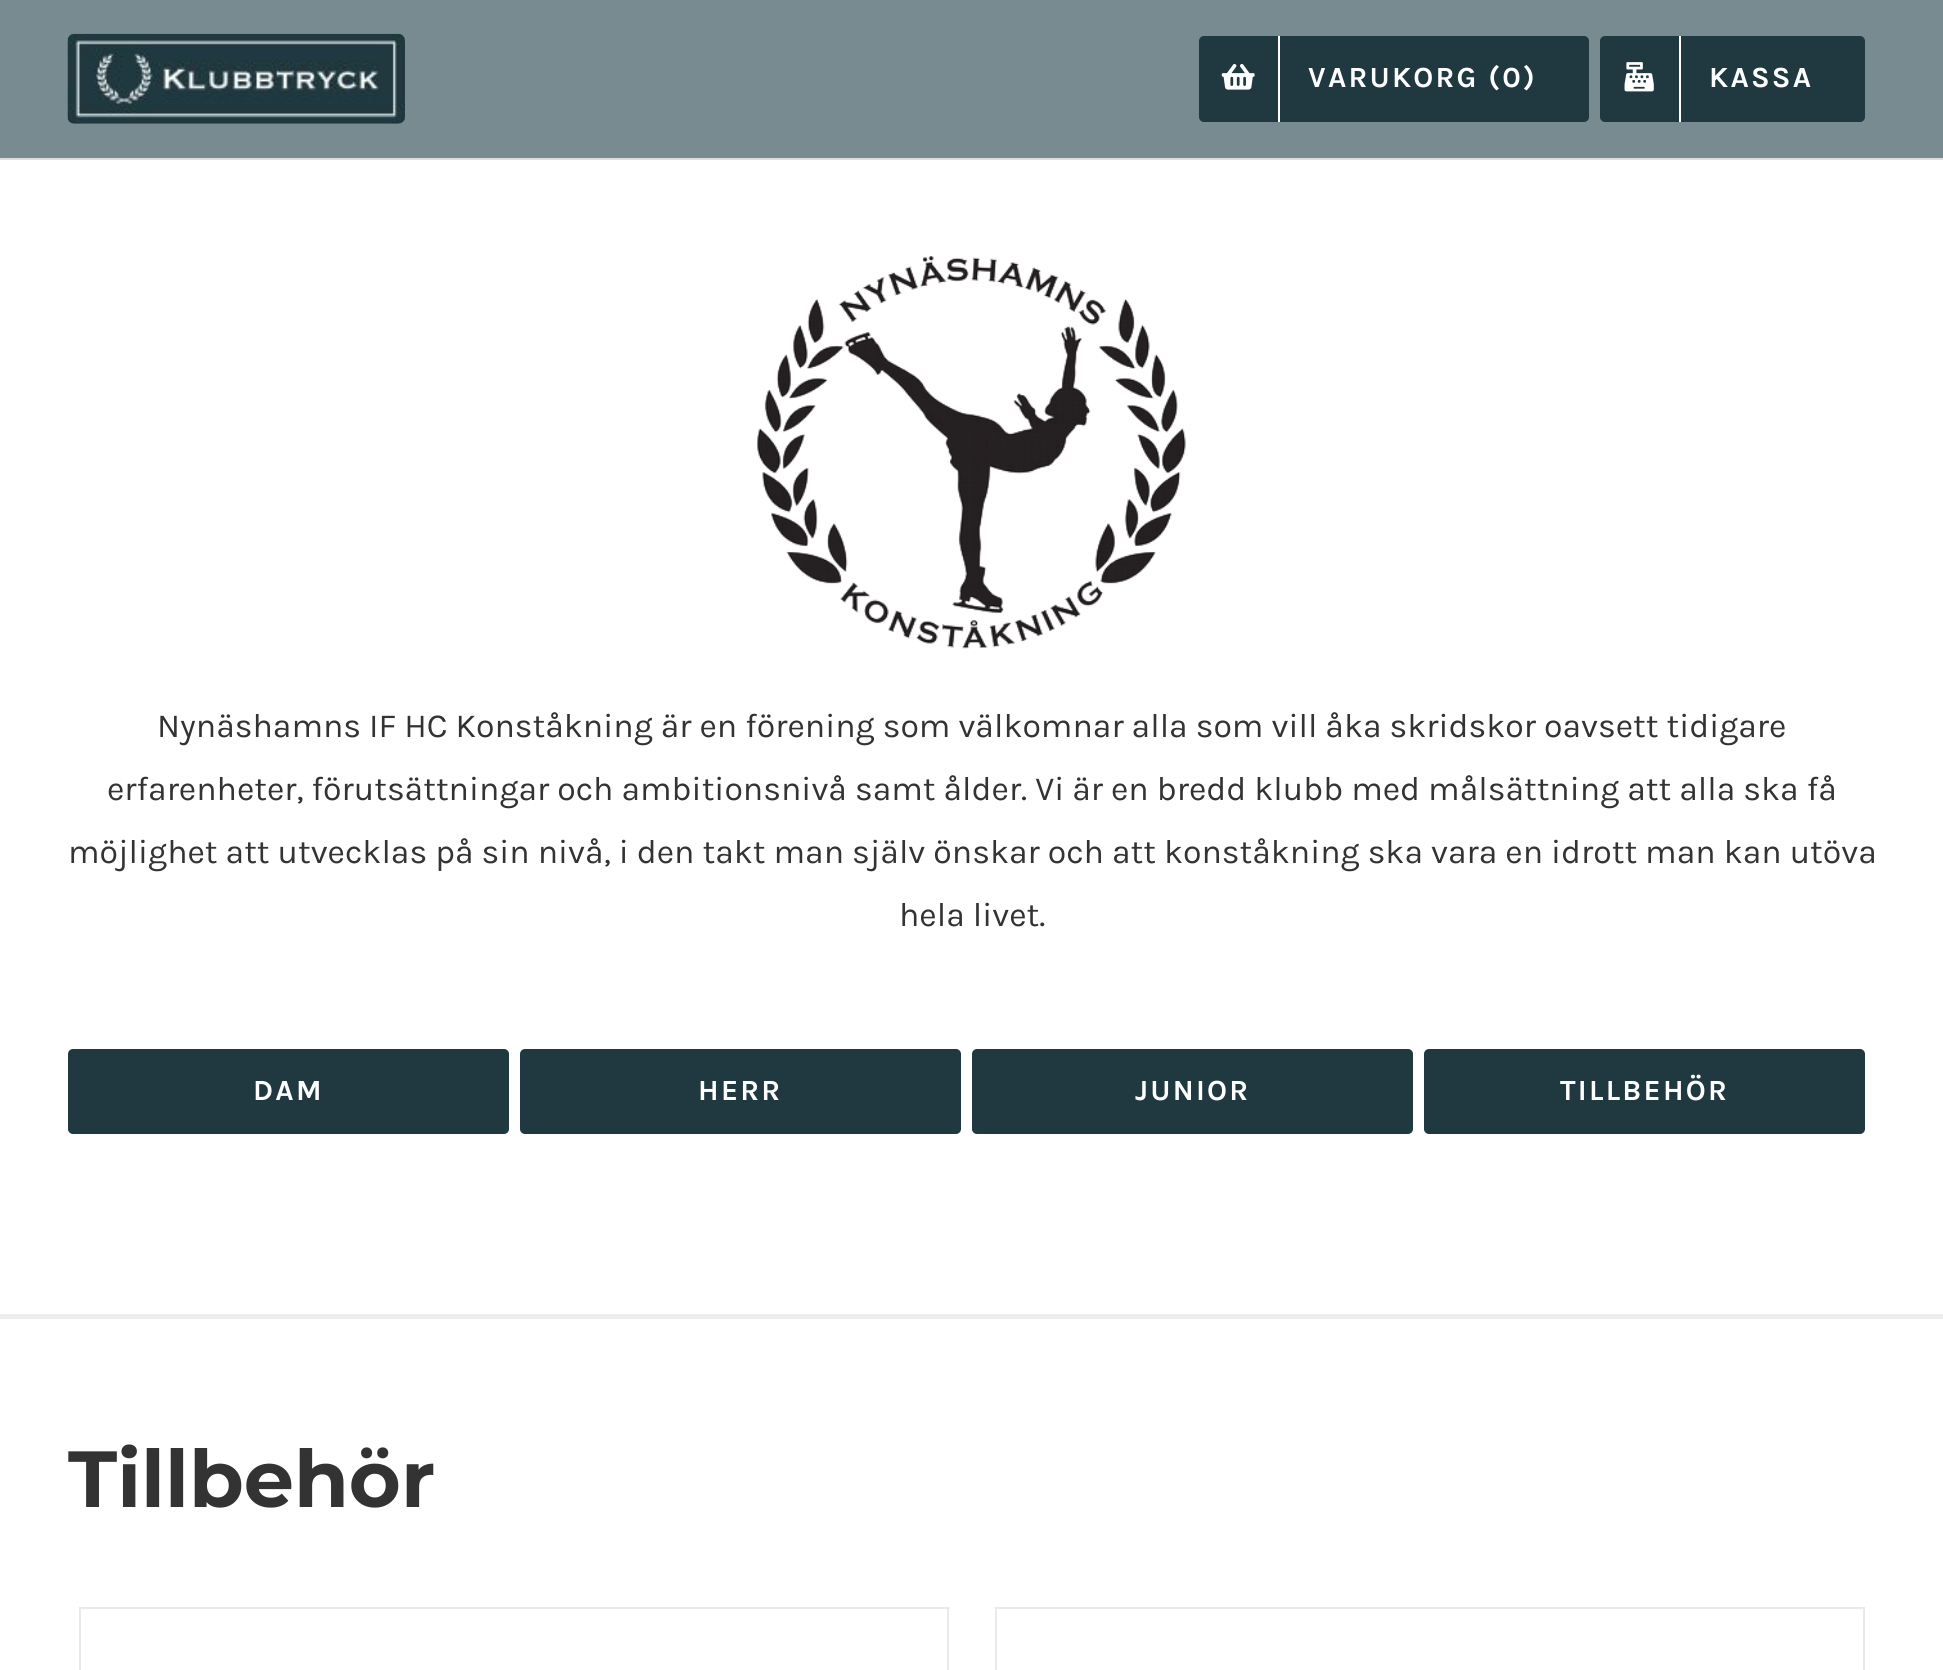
#include <cairo/cairo.h>
#include <math.h>
#include <stddef.h>

static cairo_t *cr;

static void use_color(int r, int g, int b) {
  cairo_set_source_rgb(cr, r / 255.0, g / 255.0, b / 255.0);
}

static void text(double x, double y, const char *s, const char *family, double size, int italic, int bold, int r, int g, int b) {
  cairo_select_font_face(cr, family, italic ? CAIRO_FONT_SLANT_ITALIC : CAIRO_FONT_SLANT_NORMAL,
    bold ? CAIRO_FONT_WEIGHT_BOLD : CAIRO_FONT_WEIGHT_NORMAL);
  cairo_set_font_size(cr, size);
  use_color(r, g, b);
  cairo_move_to(cr, x, y);
  cairo_show_text(cr, s);
}

static void spaced_text(double x, double y, const char *s, double letter, double word) {
  cairo_move_to(cr, x, y);
  while (*s) {
    char ch[5] = {0};
    int n = 0;
    do ch[n++] = *s++; while ((*s & 0xC0) == 0x80);
    cairo_show_text(cr, ch);
    cairo_rel_move_to(cr, letter + word * (*ch == ' '), 0);
  }
}

static void box(double x, double y, double w, double h, int r, int g, int b) {
  use_color(r, g, b);
  cairo_rectangle(cr, x, y, w, h);
  cairo_fill(cr);
}

static void round_rect(double x, double y, double w, double h, double r) {
  cairo_new_sub_path(cr);
  cairo_arc(cr, x + w - r, y + h - r, r, 0, M_PI / 2);
  cairo_arc(cr, x + r, y + h - r, r, M_PI / 2, M_PI);
  cairo_arc(cr, x + r, y + r, r, M_PI, 1.5 * M_PI);
  cairo_arc(cr, x + w - r, y + r, r, 1.5 * M_PI, 2 * M_PI);
  cairo_close_path(cr);
}

static void picture(const char *path, double x, double y, double w, double h) {
  cairo_surface_t *image = cairo_image_surface_create_from_png(path);
  cairo_save(cr);
  cairo_set_source_surface(cr, image, x, y);
  cairo_rectangle(cr, x, y, w, h);
  cairo_fill(cr);
  cairo_restore(cr);
  cairo_surface_destroy(image);
}

static void draw(void) {
  use_color(255, 255, 255);
  cairo_paint(cr);
  box(0, 0, 1943, 158, 120, 139, 145);
  box(0, 158, 1943, 2, 221, 221, 221);
  picture("img_01.png", 67, 33, 338, 91);
  use_color(32, 57, 64);
  round_rect(1199, 36, 390, 86, 5);
  cairo_fill(cr);
  box(1278, 36, 2, 86, 255, 255, 255);
  picture("img_02.png", 1221, 64, 34, 26);
  use_color(32, 57, 64);
  round_rect(1600, 36, 265, 86, 5);
  cairo_fill(cr);
  box(1679, 36, 2, 86, 255, 255, 255);
  picture("img_03.png", 1624, 62, 30, 30);
  box(0, 1314, 1943, 5, 237, 237, 237);
  picture("img_04.png", 757, 256, 429, 393);
  use_color(32, 57, 64);
  round_rect(68, 1049, 441, 85, 5);
  cairo_fill(cr);
  round_rect(520, 1049, 441, 85, 5);
  cairo_fill(cr);
  round_rect(972, 1049, 441, 85, 5);
  cairo_fill(cr);
  round_rect(1424, 1049, 441, 85, 5);
  cairo_fill(cr);
  box(79, 1607, 871, 2, 235, 234, 234);
  box(947, 1607, 2, 63, 235, 234, 234);
  box(79, 1607, 2, 63, 235, 234, 234);
  box(995, 1607, 870, 2, 235, 234, 234);
  box(1863, 1607, 2, 63, 235, 234, 234);
  box(995, 1607, 2, 63, 235, 234, 234);
  cairo_select_font_face(cr, "Karla", CAIRO_FONT_SLANT_NORMAL, CAIRO_FONT_WEIGHT_BOLD);
  cairo_set_font_size(cr, 29.25);
  use_color(255, 255, 255);
  spaced_text(1308, 87, "VARUKORG (0)", 2.25, 0);
  spaced_text(1709, 87, "KASSA", 2.25, 0);
  text(157, 737, "Nynäshamns IF HC Konståkning är en förening som välkomnar alla som vill åka skridskor oavsett tidigare", "Karla", 33.75, 0, 0, 51, 51, 51);
  text(107, 800, "erfarenheter, förutsättningar och ambitionsnivå samt ålder. Vi är en bredd klubb med målsättning att alla ska få", "Karla", 33.75, 0, 0, 51, 51, 51);
  text(68, 863, "möjlighet att utvecklas på sin nivå, i den takt man själv önskar och att konståkning ska vara en idrott man kan utöva", "Karla", 33.75, 0, 0, 51, 51, 51);
  text(899, 926, "hela livet.", "Karla", 33.75, 0, 0, 51, 51, 51);
  cairo_select_font_face(cr, "Karla", CAIRO_FONT_SLANT_NORMAL, CAIRO_FONT_WEIGHT_BOLD);
  cairo_set_font_size(cr, 29.25);
  use_color(255, 255, 255);
  spaced_text(253, 1100, "DAM", 2.25, 0);
  spaced_text(698, 1100, "HERR", 2.25, 0);
  spaced_text(1135, 1100, "JUNIOR", 2.25, 0);
  spaced_text(1560, 1100, "TILLBEHÖR", 2.25, 0);
  text(68, 1507, "Tillbehör", "Montserrat Thin", 79.5, 0, 0, 51, 51, 51);
}

int main(void) {
  cairo_surface_t *surface = cairo_image_surface_create(CAIRO_FORMAT_RGB24, 1943, 1670);
  cr = cairo_create(surface);
  cairo_font_options_t *options = cairo_font_options_create();
  cairo_font_options_set_hint_metrics(options, CAIRO_HINT_METRICS_OFF);
  cairo_font_options_set_hint_style(options, CAIRO_HINT_STYLE_NONE);
  cairo_set_font_options(cr, options);
  cairo_set_miter_limit(cr, 4);
  draw();
  cairo_surface_write_to_png(surface, "out.png");
  cairo_font_options_destroy(options);
  cairo_destroy(cr);
  cairo_surface_destroy(surface);
  return 0;
}
